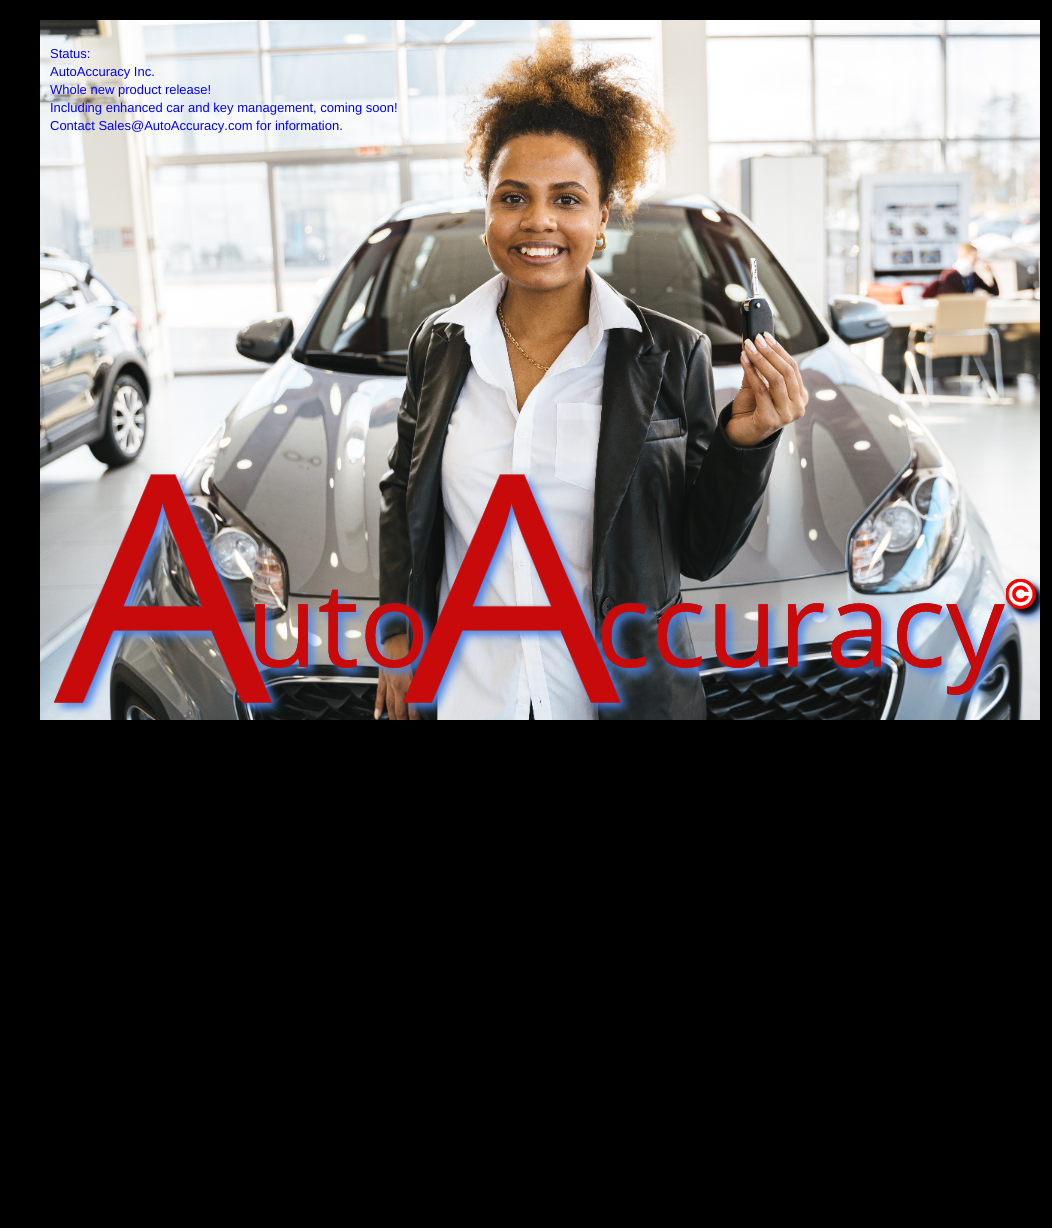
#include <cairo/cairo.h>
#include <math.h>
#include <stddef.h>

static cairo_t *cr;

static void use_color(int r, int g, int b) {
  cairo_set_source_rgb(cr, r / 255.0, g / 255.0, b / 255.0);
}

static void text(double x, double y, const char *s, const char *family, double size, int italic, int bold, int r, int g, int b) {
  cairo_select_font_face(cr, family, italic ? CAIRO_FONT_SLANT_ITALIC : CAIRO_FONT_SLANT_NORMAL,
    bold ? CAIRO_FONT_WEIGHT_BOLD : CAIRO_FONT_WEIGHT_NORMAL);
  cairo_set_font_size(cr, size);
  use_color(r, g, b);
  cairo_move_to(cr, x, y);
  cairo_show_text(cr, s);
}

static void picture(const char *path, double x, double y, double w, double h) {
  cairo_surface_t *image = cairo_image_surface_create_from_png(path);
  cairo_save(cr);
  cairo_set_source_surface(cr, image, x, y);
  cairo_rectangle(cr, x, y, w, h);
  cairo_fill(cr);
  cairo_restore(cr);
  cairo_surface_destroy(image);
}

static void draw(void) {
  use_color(0, 0, 0);
  cairo_paint(cr);
  picture("img_01.png", 40, 20, 1000, 700);
  text(50, 58, "Status:", "Liberation Sans", 13, 0, 0, 0, 0, 255);
  text(50, 76, "AutoAccuracy Inc.", "Liberation Sans", 13, 0, 0, 0, 0, 255);
  text(50, 94, "Whole new product release!", "Liberation Sans", 13, 0, 0, 0, 0, 255);
  text(50, 112, "Including enhanced car and key management, coming soon!", "Liberation Sans", 13, 0, 0, 0, 0, 255);
  text(50, 130, "Contact Sales@AutoAccuracy.com for information.", "Liberation Sans", 13, 0, 0, 0, 0, 255);
}

int main(void) {
  cairo_surface_t *surface = cairo_image_surface_create(CAIRO_FORMAT_RGB24, 1052, 1228);
  cr = cairo_create(surface);
  cairo_font_options_t *options = cairo_font_options_create();
  cairo_font_options_set_hint_metrics(options, CAIRO_HINT_METRICS_OFF);
  cairo_font_options_set_hint_style(options, CAIRO_HINT_STYLE_NONE);
  cairo_set_font_options(cr, options);
  cairo_set_miter_limit(cr, 4);
  draw();
  cairo_surface_write_to_png(surface, "out.png");
  cairo_font_options_destroy(options);
  cairo_destroy(cr);
  cairo_surface_destroy(surface);
  return 0;
}
